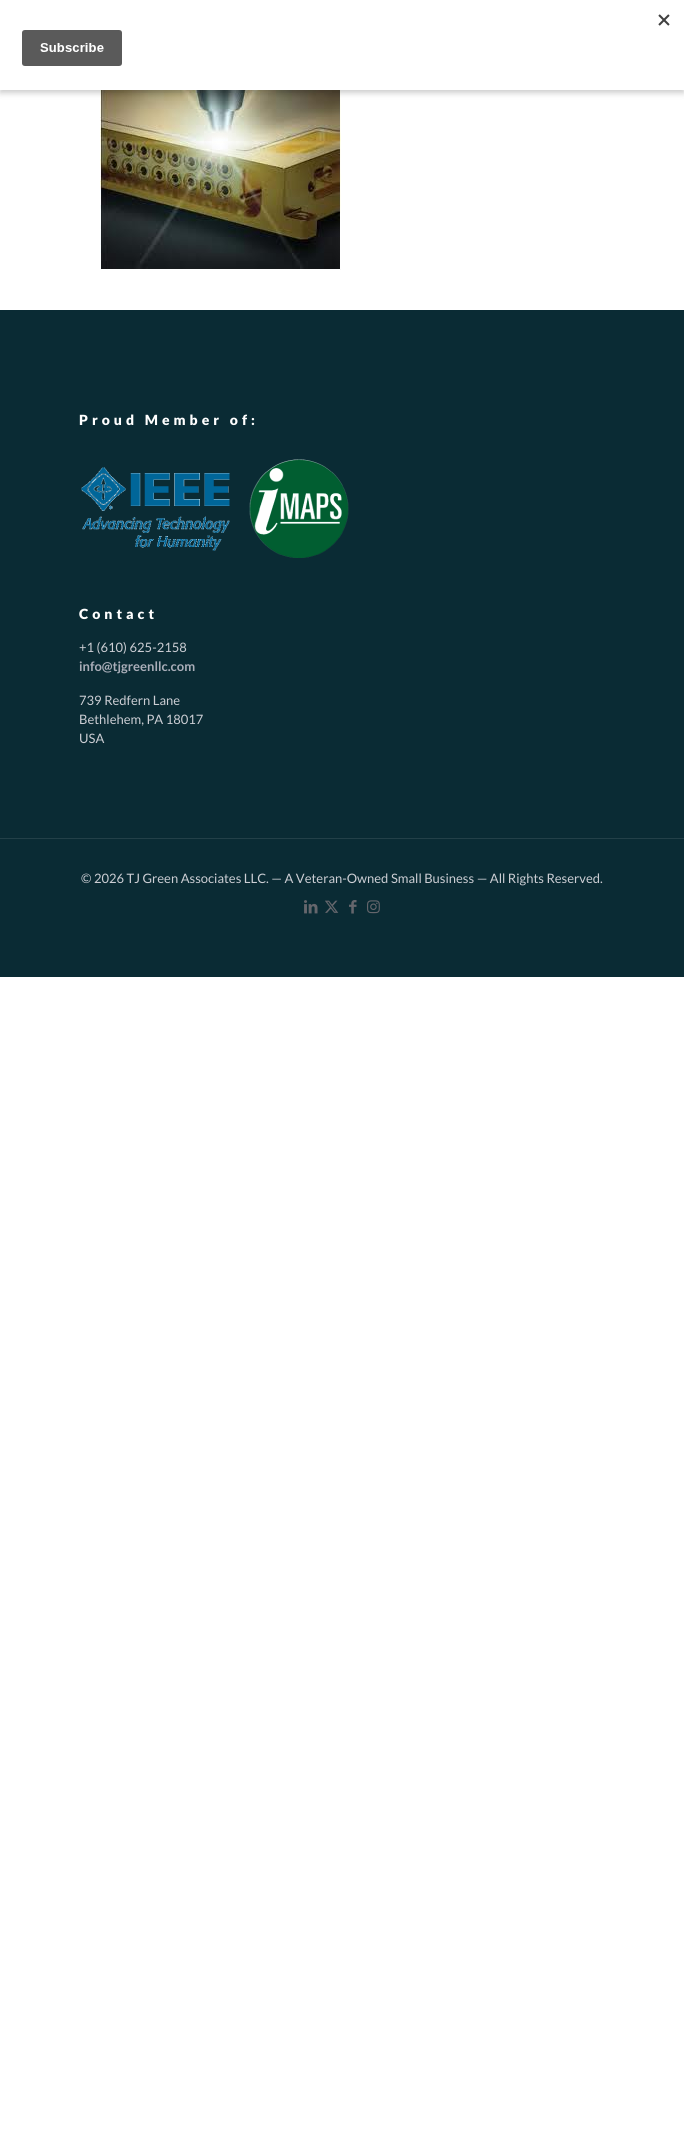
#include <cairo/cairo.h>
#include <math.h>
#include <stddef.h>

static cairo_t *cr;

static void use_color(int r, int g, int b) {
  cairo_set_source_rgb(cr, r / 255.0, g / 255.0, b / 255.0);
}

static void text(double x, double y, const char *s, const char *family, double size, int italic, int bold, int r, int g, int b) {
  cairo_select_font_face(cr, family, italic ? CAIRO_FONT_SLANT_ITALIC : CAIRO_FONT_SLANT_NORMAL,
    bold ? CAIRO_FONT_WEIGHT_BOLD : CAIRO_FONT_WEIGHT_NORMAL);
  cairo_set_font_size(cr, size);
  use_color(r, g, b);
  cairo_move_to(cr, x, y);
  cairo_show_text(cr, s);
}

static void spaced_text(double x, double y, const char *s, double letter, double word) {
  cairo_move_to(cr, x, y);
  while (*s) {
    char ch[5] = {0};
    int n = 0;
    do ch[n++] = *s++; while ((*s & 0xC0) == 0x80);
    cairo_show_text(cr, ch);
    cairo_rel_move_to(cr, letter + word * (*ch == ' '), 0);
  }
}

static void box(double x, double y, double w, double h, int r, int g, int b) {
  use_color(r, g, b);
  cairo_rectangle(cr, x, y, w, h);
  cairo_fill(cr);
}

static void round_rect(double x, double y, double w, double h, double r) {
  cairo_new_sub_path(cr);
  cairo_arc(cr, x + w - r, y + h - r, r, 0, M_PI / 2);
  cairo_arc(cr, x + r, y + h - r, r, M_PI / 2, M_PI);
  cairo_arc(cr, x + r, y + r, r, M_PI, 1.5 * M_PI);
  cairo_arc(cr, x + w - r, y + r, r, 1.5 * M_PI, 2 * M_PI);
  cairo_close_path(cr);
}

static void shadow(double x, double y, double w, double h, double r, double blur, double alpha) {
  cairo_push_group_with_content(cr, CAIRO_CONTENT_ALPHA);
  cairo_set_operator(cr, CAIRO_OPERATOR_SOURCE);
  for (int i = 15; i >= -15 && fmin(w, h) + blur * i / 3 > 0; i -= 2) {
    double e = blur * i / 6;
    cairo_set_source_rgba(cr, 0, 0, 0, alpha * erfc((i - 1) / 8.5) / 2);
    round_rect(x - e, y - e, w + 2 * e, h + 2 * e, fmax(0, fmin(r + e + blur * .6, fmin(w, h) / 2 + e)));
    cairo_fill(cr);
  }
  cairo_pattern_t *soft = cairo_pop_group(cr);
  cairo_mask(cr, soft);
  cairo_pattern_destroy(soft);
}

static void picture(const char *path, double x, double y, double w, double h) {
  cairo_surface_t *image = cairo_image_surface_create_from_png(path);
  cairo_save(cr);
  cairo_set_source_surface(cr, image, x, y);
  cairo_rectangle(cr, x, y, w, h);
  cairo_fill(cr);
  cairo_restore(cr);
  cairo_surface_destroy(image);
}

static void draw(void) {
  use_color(255, 255, 255);
  cairo_paint(cr);
  picture("img_02.png", 100, 90, 241, 180);
  use_color(0, 0, 0);
  shadow(0, 3, 684, 90, 0, 3, 0.2);
  box(0, 0, 684, 90, 255, 255, 255);
  picture("img_01.png", 22, 14, 648, 52);
  box(0, 310, 684, 667, 10, 43, 52);
  picture("img_03.png", 81, 467, 149, 84);
  picture("img_04.png", 249, 459, 100, 99);
  box(0, 838, 684, 1, 35, 64, 72);
  picture("img_05.png", 304, 900, 14, 14);
  picture("img_06.png", 325, 900, 14, 13);
  picture("img_07.png", 349, 900, 8, 14);
  picture("img_08.png", 367, 900, 13, 14);
  cairo_select_font_face(cr, "Lato Black", CAIRO_FONT_SLANT_NORMAL, CAIRO_FONT_WEIGHT_NORMAL);
  cairo_set_font_size(cr, 14);
  use_color(255, 255, 255);
  spaced_text(79, 425, "Proud Member of:", 4, 0);
  spaced_text(79, 619, "Contact", 4, 0);
  text(79, 652, "+1 (610) 625-2158", "Lato", 13, 0, 0, 204, 206, 212);
  text(79, 671, "info@tjgreenllc.com", "Lato", 13, 0, 1, 170, 174, 185);
  text(79, 705, "739 Redfern Lane", "Lato", 13, 0, 0, 204, 206, 212);
  text(79, 724, "Bethlehem, PA 18017", "Lato", 13, 0, 0, 204, 206, 212);
  text(79, 743, "USA", "Lato", 13, 0, 0, 204, 206, 212);
  text(81, 883, "© 2026 TJ Green Associates LLC. — A Veteran-Owned Small Business — All Rights Reserved.", "Lato", 13, 0, 0, 204, 206, 212);
}

int main(void) {
  cairo_surface_t *surface = cairo_image_surface_create(CAIRO_FORMAT_RGB24, 684, 2145);
  cr = cairo_create(surface);
  cairo_font_options_t *options = cairo_font_options_create();
  cairo_font_options_set_hint_metrics(options, CAIRO_HINT_METRICS_OFF);
  cairo_font_options_set_hint_style(options, CAIRO_HINT_STYLE_NONE);
  cairo_set_font_options(cr, options);
  cairo_set_miter_limit(cr, 4);
  draw();
  cairo_surface_write_to_png(surface, "out.png");
  cairo_font_options_destroy(options);
  cairo_destroy(cr);
  cairo_surface_destroy(surface);
  return 0;
}
